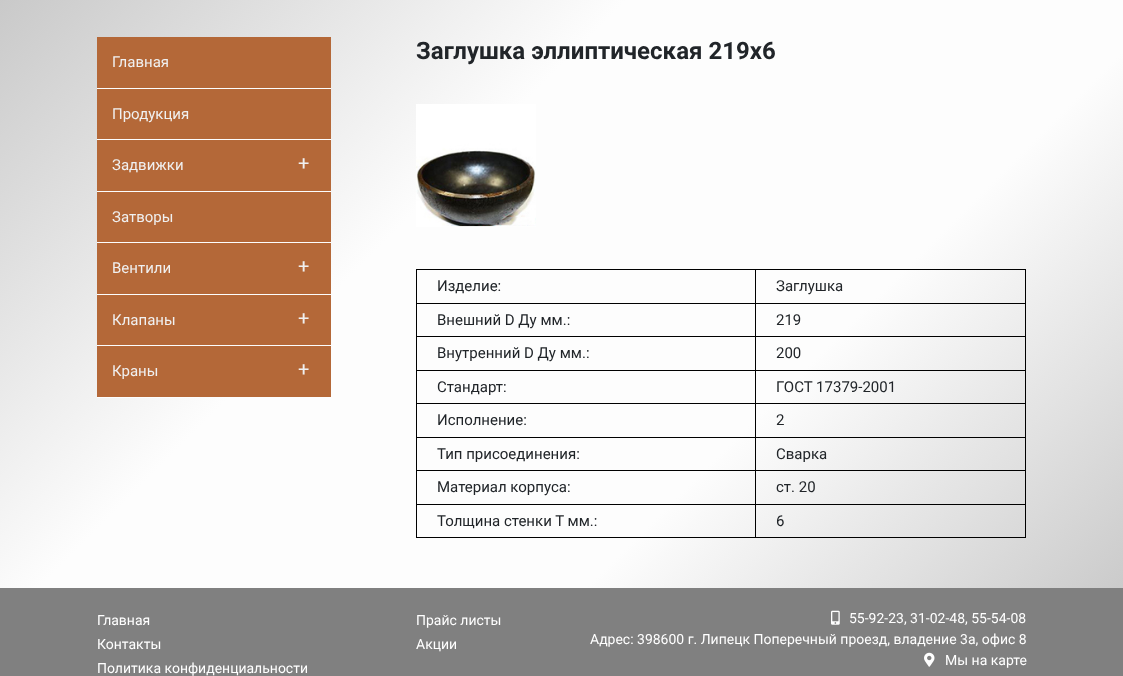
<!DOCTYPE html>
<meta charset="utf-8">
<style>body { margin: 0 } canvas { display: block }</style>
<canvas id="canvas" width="1123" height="676"></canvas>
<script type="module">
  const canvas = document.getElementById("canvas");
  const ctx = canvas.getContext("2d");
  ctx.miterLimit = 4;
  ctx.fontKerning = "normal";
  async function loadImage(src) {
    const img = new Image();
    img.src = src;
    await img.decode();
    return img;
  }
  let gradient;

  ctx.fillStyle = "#ffffff";
  ctx.fillRect(0, 0, 1123, 676);
  gradient = ctx.createLinearGradient(56, -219, 1068, 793);
  gradient.addColorStop(0, "#bcbcbc");
  gradient.addColorStop(0.39, "#fdfdfd");
  gradient.addColorStop(0.66, "#fdfdfd");
  gradient.addColorStop(1, "#bdbdbd");
  ctx.fillStyle = gradient;
  ctx.fillRect(0, 0, 1123, 588);
  ctx.fillStyle = "#b46838";
  ctx.fillRect(97, 37, 234, 51);
  ctx.fillStyle = "#fdfdfd";
  ctx.fillRect(97, 88, 234, 1);
  ctx.font = "15px Roboto";
  ctx.fillStyle = "#f0f0f0";
  ctx.fillText("Главная", 112, 67);
  ctx.fillStyle = "#b46838";
  ctx.fillRect(97, 89, 234, 50);
  ctx.fillStyle = "#fdfdfd";
  ctx.fillRect(97, 139, 234, 1);
  ctx.fillStyle = "#f0f0f0";
  ctx.fillText("Продукция", 112, 119);
  ctx.fillStyle = "#b46838";
  ctx.fillRect(97, 140, 234, 51);
  ctx.fillStyle = "#fdfdfd";
  ctx.fillRect(97, 191, 234, 1);
  ctx.fillStyle = "#f0f0f0";
  ctx.fillText("Задвижки", 112, 170);
  ctx.font = "20px Roboto";
  ctx.fillText("+", 298, 170);
  ctx.fillStyle = "#b46838";
  ctx.fillRect(97, 192, 234, 50);
  ctx.fillStyle = "#fdfdfd";
  ctx.fillRect(97, 242, 234, 1);
  ctx.font = "15px Roboto";
  ctx.fillStyle = "#f0f0f0";
  ctx.fillText("Затворы", 112, 222);
  ctx.fillStyle = "#b46838";
  ctx.fillRect(97, 243, 234, 51);
  ctx.fillStyle = "#fdfdfd";
  ctx.fillRect(97, 294, 205, 1);
  ctx.fillStyle = "#f0f0f0";
  ctx.fillText("Вентили", 112, 273);
  ctx.font = "20px Roboto";
  ctx.fillText("+", 298, 273);
  ctx.fillStyle = "#b46838";
  ctx.fillRect(97, 295, 234, 50);
  ctx.fillStyle = "#fdfdfd";
  ctx.fillRect(97, 345, 154, 1);
  ctx.font = "15px Roboto";
  ctx.fillStyle = "#f0f0f0";
  ctx.fillText("Клапаны", 112, 325);
  ctx.font = "20px Roboto";
  ctx.fillText("+", 298, 325);
  ctx.fillStyle = "#b46838";
  ctx.fillRect(97, 346, 234, 51);
  ctx.fillStyle = "#fdfdfd";
  ctx.fillRect(97, 397, 102, 1);
  ctx.font = "15px Roboto";
  ctx.fillStyle = "#f0f0f0";
  ctx.fillText("Краны", 112, 376);
  ctx.font = "20px Roboto";
  ctx.fillText("+", 298, 376);
  ctx.font = "bold 24px Roboto";
  ctx.fillStyle = "#212529";
  ctx.fillText("Заглушка эллиптическая 219х6", 416, 59);
  ctx.drawImage(await loadImage("img1.png"), 416, 104, 120, 123);
  ctx.fillStyle = "#000000";
  ctx.fillRect(755, 269, 271, 1);
  ctx.fillRect(755, 303, 271, 1);
  ctx.fillRect(755, 336, 271, 1);
  ctx.fillRect(755, 370, 271, 1);
  ctx.fillRect(755, 403, 271, 1);
  ctx.fillRect(755, 437, 271, 1);
  ctx.fillRect(755, 470, 271, 1);
  ctx.fillRect(755, 504, 271, 1);
  ctx.fillRect(1025, 504, 1, 34);
  ctx.fillRect(755, 537, 271, 1);
  ctx.fillRect(755, 504, 1, 34);
  ctx.fillRect(416, 504, 340, 1);
  ctx.fillRect(755, 470, 1, 35);
  ctx.fillRect(416, 470, 340, 1);
  ctx.fillRect(755, 437, 1, 34);
  ctx.fillRect(416, 437, 340, 1);
  ctx.fillRect(755, 403, 1, 35);
  ctx.fillRect(416, 403, 340, 1);
  ctx.fillRect(755, 370, 1, 34);
  ctx.fillRect(416, 370, 340, 1);
  ctx.fillRect(755, 336, 1, 35);
  ctx.fillRect(416, 336, 340, 1);
  ctx.fillRect(755, 303, 1, 34);
  ctx.fillRect(416, 303, 340, 1);
  ctx.fillRect(755, 269, 1, 35);
  ctx.fillRect(416, 269, 340, 1);
  ctx.fillRect(416, 537, 340, 1);
  ctx.fillRect(416, 504, 1, 34);
  ctx.fillRect(416, 470, 1, 35);
  ctx.fillRect(416, 437, 1, 34);
  ctx.fillRect(416, 403, 1, 35);
  ctx.fillRect(416, 370, 1, 34);
  ctx.fillRect(416, 336, 1, 35);
  ctx.fillRect(416, 303, 1, 34);
  ctx.fillRect(416, 269, 1, 35);
  ctx.font = "15px 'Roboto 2'";
  ctx.fillStyle = "#212529";
  ctx.fillText("Изделие:", 437, 291);
  ctx.fillStyle = "#000000";
  ctx.fillRect(1025, 470, 1, 35);
  ctx.fillRect(1025, 437, 1, 34);
  ctx.fillRect(1025, 403, 1, 35);
  ctx.fillRect(1025, 370, 1, 34);
  ctx.fillRect(1025, 336, 1, 35);
  ctx.fillRect(1025, 303, 1, 34);
  ctx.fillRect(1025, 269, 1, 35);
  ctx.fillStyle = "#212529";
  ctx.fillText("Заглушка", 776, 291);
  ctx.fillText("Внешний D Ду мм.:", 437, 325);
  ctx.fillText("219", 776, 325);
  ctx.fillText("Внутренний D Ду мм.:", 437, 358);
  ctx.fillText("200", 776, 358);
  ctx.fillText("Стандарт:", 437, 392);
  ctx.fillText("ГОСТ 17379-2001", 776, 392);
  ctx.fillText("Исполнение:", 437, 425);
  ctx.fillText("2", 776, 425);
  ctx.fillText("Тип присоединения:", 437, 459);
  ctx.fillText("Сварка", 776, 459);
  ctx.fillText("Материал корпуса:", 437, 492);
  ctx.fillText("ст. 20", 776, 492);
  ctx.fillText("Толщина стенки Т мм.:", 437, 526);
  ctx.fillText("6", 776, 526);
  ctx.fillStyle = "#808080";
  ctx.fillRect(0, 588, 1123, 88);
  ctx.font = "14px Roboto";
  ctx.fillStyle = "#ffffff";
  ctx.fillText("Главная", 97, 625);
  ctx.fillText("Контакты", 97, 649);
  ctx.fillText("Политика конфиденциальности", 97, 673);
  ctx.fillText("Прайс листы", 416, 625);
  ctx.fillText("Акции", 416, 649);
  ctx.drawImage(await loadImage("img2.png"), 831, 610, 9, 15);
  ctx.fillText("55-92-23, 31-02-48, 55-54-08", 849, 623);
  ctx.fillText("Адрес: 398600 г. Липецк Поперечный проезд, владение 3а, офис 8", 590, 644);
  ctx.drawImage(await loadImage("img3.png"), 924, 652, 11, 15);
  ctx.fillText("Мы на карте", 945, 665);
</script>
